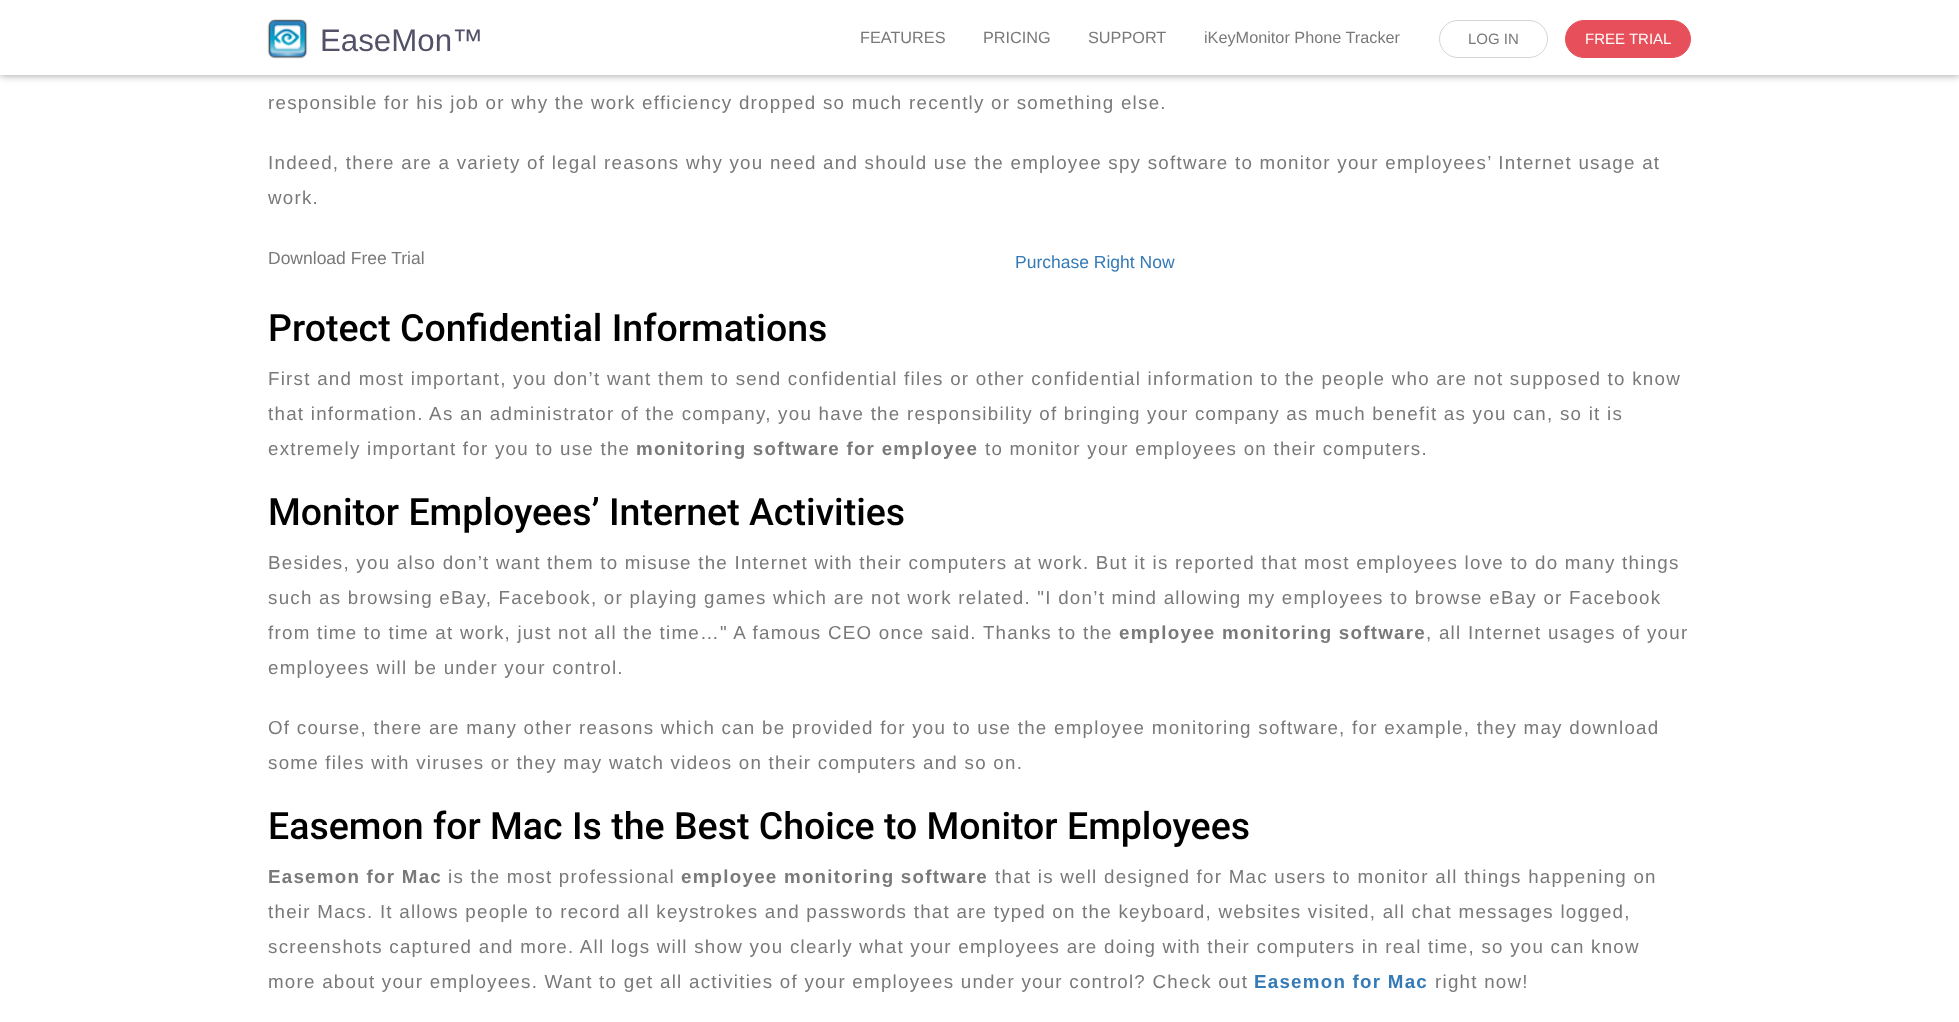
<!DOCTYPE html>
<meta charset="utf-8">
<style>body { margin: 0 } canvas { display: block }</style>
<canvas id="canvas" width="1959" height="1022"></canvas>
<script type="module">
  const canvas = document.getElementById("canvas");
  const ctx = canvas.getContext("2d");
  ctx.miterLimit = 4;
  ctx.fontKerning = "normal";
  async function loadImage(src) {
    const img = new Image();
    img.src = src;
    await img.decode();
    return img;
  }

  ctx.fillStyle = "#ffffff";
  ctx.fillRect(0, 0, 1959, 1022);
  ctx.fillStyle = "rgba(0, 0, 0, 0.4)";
  ctx.filter = "blur(4px)";
  ctx.beginPath();
  ctx.rect(0, 0, 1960, 75);
  ctx.fill();
  ctx.filter = "none";
  ctx.fillStyle = "#ffffff";
  ctx.fillRect(0, 0, 1959, 75);
  ctx.drawImage(await loadImage("img1.png"), 267, 19, 41, 40);
  ctx.font = "31.25px Liberation Sans";
  ctx.fillStyle = "#525168";
  ctx.fillText("EaseMon™", 320, 51);
  ctx.font = "16.25px Liberation Sans";
  ctx.fillStyle = "#797979";
  ctx.fillText("FEATURES", 860, 43);
  ctx.fillText("PRICING", 983, 43);
  ctx.fillText("SUPPORT", 1088, 43);
  ctx.fillText("iKeyMonitor Phone Tracker", 1204, 43);
  ctx.beginPath();
  ctx.roundRect(1439.5, 20.5, 108, 37, 18.5);
  ctx.strokeStyle = "#d5d5d5";
  ctx.stroke();
  ctx.font = "15px Liberation Sans";
  ctx.fillText("LOG IN", 1468, 44);
  ctx.fillStyle = "#e7505a";
  ctx.beginPath();
  ctx.roundRect(1565.5, 20.5, 125, 37, 18.5);
  ctx.fill();
  ctx.strokeStyle = "#e7505a";
  ctx.stroke();
  ctx.fillStyle = "#ffffff";
  ctx.fillText("FREE TRIAL", 1585, 44);
  ctx.letterSpacing = "1.25px";
  ctx.font = "18.75px Liberation Sans";
  ctx.fillStyle = "#797979";
  ctx.fillText("responsible for his job or why the work efficiency dropped so much recently or something else.", 268, 109);
  ctx.fillText("Indeed, there are a variety of legal reasons why you need and should use the employee spy software to monitor your employees’ Internet usage at", 268, 169);
  ctx.fillText("work.", 268, 204);
  ctx.letterSpacing = "0px";
  ctx.font = "17.5px Liberation Sans";
  ctx.fillText("Download Free Trial", 268, 264);
  ctx.fillStyle = "#337ab7";
  ctx.fillText("Purchase Right Now", 1015, 268);
  ctx.font = "500 37.5px Roboto";
  ctx.fillStyle = "#000000";
  ctx.fillText("Protect Confidential Informations", 268, 341);
  ctx.letterSpacing = "1.25px";
  ctx.font = "18.75px Liberation Sans";
  ctx.fillStyle = "#797979";
  ctx.fillText("First and most important, you don’t want them to send confidential files or other confidential information to the people who are not supposed to know", 268, 385);
  ctx.fillText("that information. As an administrator of the company, you have the responsibility of bringing your company as much benefit as you can, so it is", 268, 420);
  ctx.fillText("extremely important for you to use the", 268, 455);
  ctx.font = "bold 18.75px Liberation Sans";
  ctx.fillText("monitoring software for employee", 636, 455);
  ctx.font = "18.75px Liberation Sans";
  ctx.fillText("to monitor your employees on their computers.", 985, 455);
  ctx.letterSpacing = "0px";
  ctx.font = "500 37.5px Roboto";
  ctx.fillStyle = "#000000";
  ctx.fillText("Monitor Employees’ Internet Activities", 268, 525);
  ctx.letterSpacing = "1.25px";
  ctx.font = "18.75px Liberation Sans";
  ctx.fillStyle = "#797979";
  ctx.fillText("Besides, you also don’t want them to misuse the Internet with their computers at work. But it is reported that most employees love to do many things", 268, 569);
  ctx.fillText("such as browsing eBay, Facebook, or playing games which are not work related. \"I don’t mind allowing my employees to browse eBay or Facebook", 268, 604);
  ctx.fillText("from time to time at work, just not all the time…\" A famous CEO once said. Thanks to the", 268, 639);
  ctx.font = "bold 18.75px Liberation Sans";
  ctx.fillText("employee monitoring software", 1119, 639);
  ctx.font = "18.75px Liberation Sans";
  ctx.fillText(", all Internet usages of your", 1426, 639);
  ctx.fillText("employees will be under your control.", 268, 674);
  ctx.fillText("Of course, there are many other reasons which can be provided for you to use the employee monitoring software, for example, they may download", 268, 734);
  ctx.fillText("some files with viruses or they may watch videos on their computers and so on.", 268, 769);
  ctx.letterSpacing = "0px";
  ctx.font = "500 37.5px Roboto";
  ctx.fillStyle = "#000000";
  ctx.fillText("Easemon for Mac Is the Best Choice to Monitor Employees", 268, 839);
  ctx.letterSpacing = "1.25px";
  ctx.font = "bold 18.75px Liberation Sans";
  ctx.fillStyle = "#797979";
  ctx.fillText("Easemon for Mac", 268, 883);
  ctx.font = "18.75px Liberation Sans";
  ctx.fillText("is the most professional", 448, 883);
  ctx.font = "bold 18.75px Liberation Sans";
  ctx.fillText("employee monitoring software", 681, 883);
  ctx.font = "18.75px Liberation Sans";
  ctx.fillText("that is well designed for Mac users to monitor all things happening on", 995, 883);
  ctx.fillText("their Macs. It allows people to record all keystrokes and passwords that are typed on the keyboard, websites visited, all chat messages logged,", 268, 918);
  ctx.fillText("screenshots captured and more. All logs will show you clearly what your employees are doing with their computers in real time, so you can know", 268, 953);
  ctx.fillText("more about your employees. Want to get all activities of your employees under your control? Check out", 268, 988);
  ctx.font = "bold 18.75px Liberation Sans";
  ctx.fillStyle = "#337ab7";
  ctx.fillText("Easemon for Mac", 1254, 988);
  ctx.font = "18.75px Liberation Sans";
  ctx.fillStyle = "#797979";
  ctx.fillText("right now!", 1435, 988);
</script>
